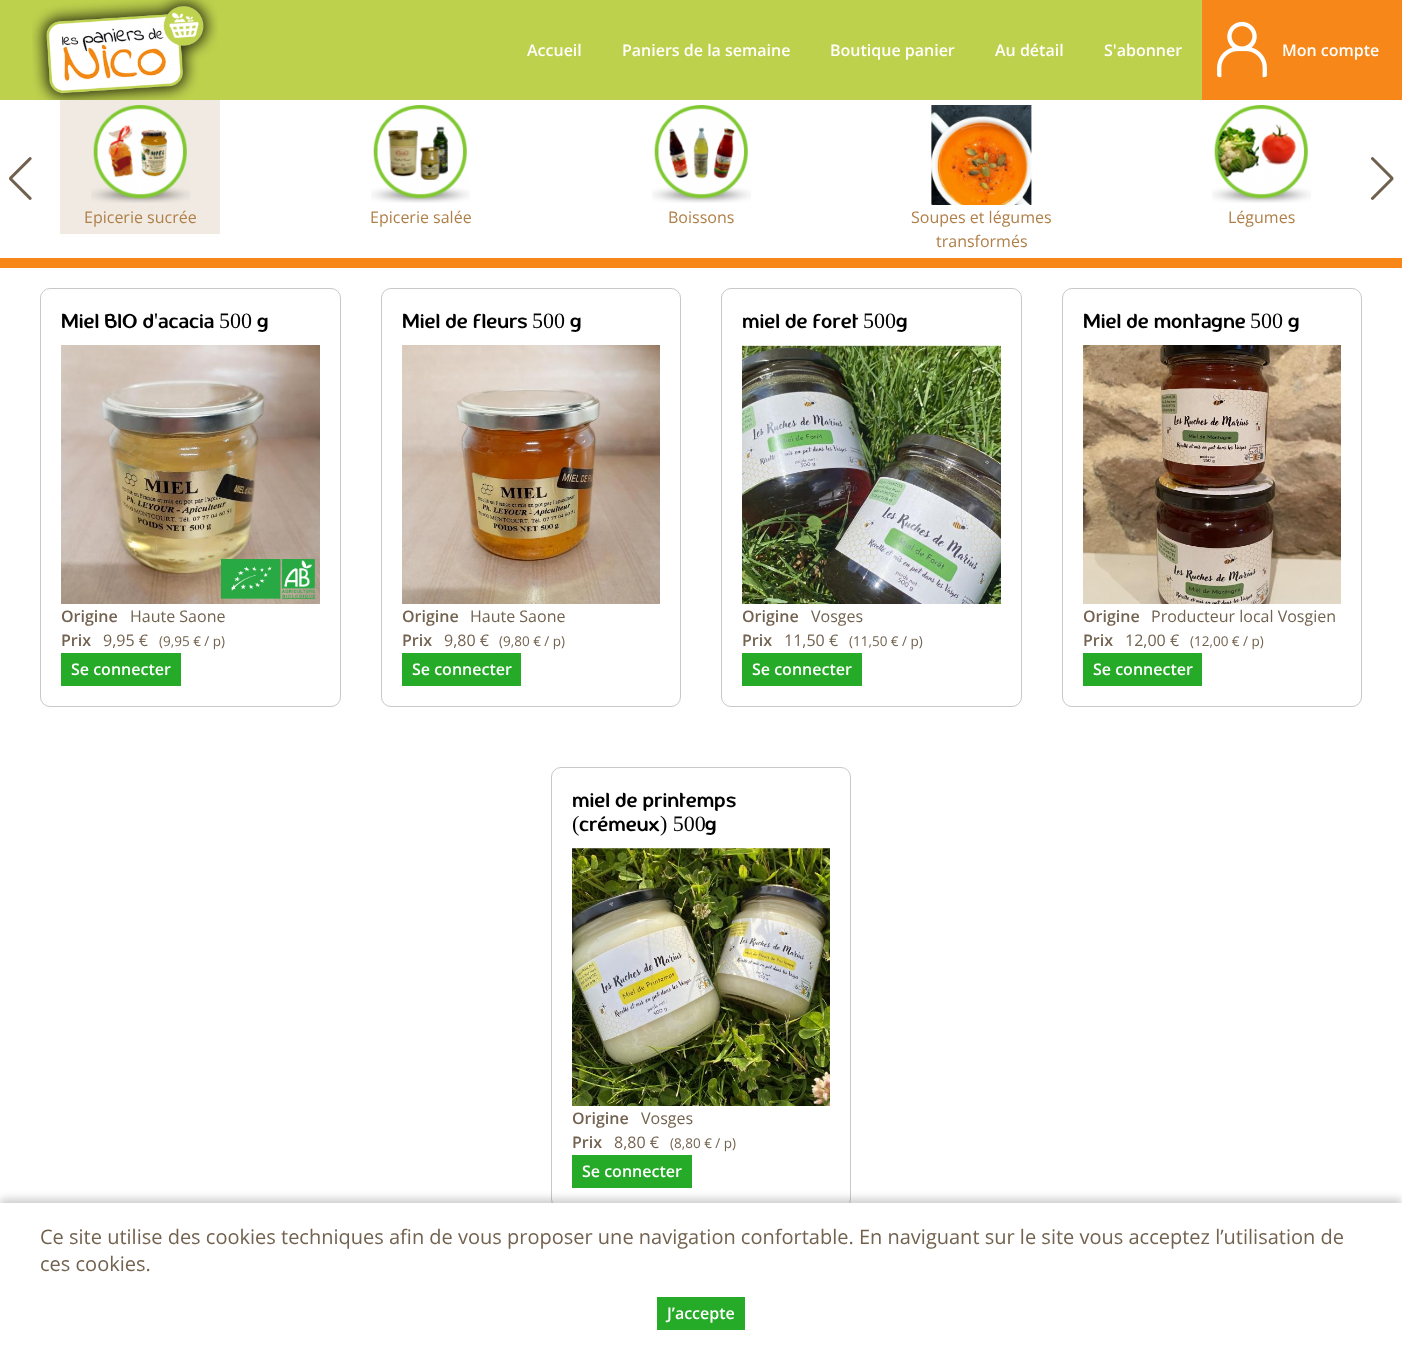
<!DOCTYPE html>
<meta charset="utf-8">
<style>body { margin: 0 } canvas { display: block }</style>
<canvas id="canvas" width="1402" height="1350"></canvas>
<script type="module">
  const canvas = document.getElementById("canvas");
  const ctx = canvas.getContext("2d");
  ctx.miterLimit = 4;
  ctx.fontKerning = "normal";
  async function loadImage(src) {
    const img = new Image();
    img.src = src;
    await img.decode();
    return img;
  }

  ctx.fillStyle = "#ffffff";
  ctx.fillRect(0, 0, 1402, 1350);
  ctx.fillStyle = "#bdd14d";
  ctx.fillRect(0, 0, 1202, 100);
  ctx.drawImage(await loadImage("img1.png"), 32, 0, 186, 100);
  ctx.font = "600 16px Open Sans";
  ctx.fillStyle = "#ffffff";
  ctx.fillText("Accueil", 527, 56);
  ctx.fillText("Paniers de la semaine", 622, 56);
  ctx.fillText("Boutique panier", 830, 56);
  ctx.fillText("Au détail", 995, 56);
  ctx.fillText("S'abonner", 1104, 56);
  ctx.fillStyle = "#f68718";
  ctx.fillRect(1202, 0, 200, 100);
  ctx.drawImage(await loadImage("img2.png"), 1217, 21, 50, 57);
  ctx.fillStyle = "#ffffff";
  ctx.fillText("Mon compte", 1282, 56);
  ctx.fillStyle = "#f68718";
  ctx.fillRect(0, 258, 1402, 10);
  ctx.drawImage(await loadImage("img3.png"), 9, 157, 23, 43);
  ctx.drawImage(await loadImage("img4.png"), 1370, 157, 24, 43);
  ctx.fillStyle = "#f0eae3";
  ctx.fillRect(60, 100, 160, 134);
  ctx.drawImage(await loadImage("img5.png"), 91, 105, 99, 98);
  ctx.font = "16px Open Sans";
  ctx.fillStyle = "#b07f48";
  ctx.fillText("Epicerie sucrée", 84, 223);
  ctx.drawImage(await loadImage("img6.png"), 371, 105, 99, 98);
  ctx.fillText("Epicerie salée", 370, 223);
  ctx.drawImage(await loadImage("img7.png"), 652, 105, 99, 98);
  ctx.fillText("Boissons", 668, 223);
  ctx.drawImage(await loadImage("img8.png"), 931, 105, 101, 100);
  ctx.fillText("Soupes et légumes", 911, 223);
  ctx.fillText("transformés", 936, 247);
  ctx.drawImage(await loadImage("img9.png"), 1212, 105, 99, 98);
  ctx.fillText("Légumes", 1228, 223);
  ctx.beginPath();
  ctx.roundRect(40.5, 288.5, 300, 418, 9.5);
  ctx.strokeStyle = "#c8c8c8";
  ctx.stroke();
  ctx.font = "22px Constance";
  ctx.fillStyle = "#000000";
  ctx.fillText("Miel BIO d", 61, 328);
  ctx.font = "22px Liberation Serif";
  ctx.fillText("'", 154, 328);
  ctx.font = "22px Constance";
  ctx.fillText("acacia", 158, 328);
  ctx.font = "22px Liberation Serif";
  ctx.fillText("500", 219, 328);
  ctx.font = "22px Constance";
  ctx.fillText("g", 257, 328);
  ctx.drawImage(await loadImage("img10.png"), 61, 345, 259, 259);
  ctx.drawImage(await loadImage("img11.png"), 221, 559, 94, 40);
  ctx.font = "600 16px Open Sans";
  ctx.fillStyle = "#72624f";
  ctx.fillText("Origine", 61, 622);
  ctx.font = "16px Open Sans";
  ctx.fillText("Haute Saone", 130, 622);
  ctx.font = "600 16px Open Sans";
  ctx.fillText("Prix", 61, 646);
  ctx.font = "16px Open Sans";
  ctx.fillText("9,95 €", 103, 646);
  ctx.font = "13.5px Open Sans";
  ctx.fillText("(9,95 € / p)", 159, 646);
  ctx.fillStyle = "#25ab28";
  ctx.fillRect(61, 653, 120, 33);
  ctx.font = "600 16px Open Sans";
  ctx.fillStyle = "#ffffff";
  ctx.fillText("Se connecter", 71, 675);
  ctx.beginPath();
  ctx.roundRect(381.5, 288.5, 299, 418, 9.5);
  ctx.stroke();
  ctx.font = "22px Constance";
  ctx.fillStyle = "#000000";
  ctx.fillText("Miel de fleurs", 402, 328);
  ctx.font = "22px Liberation Serif";
  ctx.fillText("500", 532, 328);
  ctx.font = "22px Constance";
  ctx.fillText("g", 570, 328);
  ctx.drawImage(await loadImage("img12.png"), 402, 345, 258, 259);
  ctx.font = "600 16px Open Sans";
  ctx.fillStyle = "#72624f";
  ctx.fillText("Origine", 402, 622);
  ctx.font = "16px Open Sans";
  ctx.fillText("Haute Saone", 470, 622);
  ctx.font = "600 16px Open Sans";
  ctx.fillText("Prix", 402, 646);
  ctx.font = "16px Open Sans";
  ctx.fillText("9,80 €", 444, 646);
  ctx.font = "13.5px Open Sans";
  ctx.fillText("(9,80 € / p)", 499, 646);
  ctx.fillStyle = "#25ab28";
  ctx.fillRect(402, 653, 119, 33);
  ctx.font = "600 16px Open Sans";
  ctx.fillStyle = "#ffffff";
  ctx.fillText("Se connecter", 412, 675);
  ctx.beginPath();
  ctx.roundRect(721.5, 288.5, 300, 418, 9.5);
  ctx.stroke();
  ctx.font = "22px Constance";
  ctx.fillStyle = "#000000";
  ctx.fillText("miel de foret", 742, 328);
  ctx.font = "22px Liberation Serif";
  ctx.fillText("500", 863, 328);
  ctx.font = "22px Constance";
  ctx.fillText("g", 896, 328);
  ctx.drawImage(await loadImage("img13.png"), 742, 345, 259, 259);
  ctx.font = "600 16px Open Sans";
  ctx.fillStyle = "#72624f";
  ctx.fillText("Origine", 742, 622);
  ctx.font = "16px Open Sans";
  ctx.fillText("Vosges", 811, 622);
  ctx.font = "600 16px Open Sans";
  ctx.fillText("Prix", 742, 646);
  ctx.font = "16px Open Sans";
  ctx.fillText("11,50 €", 784, 646);
  ctx.font = "13.5px Open Sans";
  ctx.fillText("(11,50 € / p)", 849, 646);
  ctx.fillStyle = "#25ab28";
  ctx.fillRect(742, 653, 120, 33);
  ctx.font = "600 16px Open Sans";
  ctx.fillStyle = "#ffffff";
  ctx.fillText("Se connecter", 752, 675);
  ctx.beginPath();
  ctx.roundRect(1062.5, 288.5, 299, 418, 9.5);
  ctx.stroke();
  ctx.font = "22px Constance";
  ctx.fillStyle = "#000000";
  ctx.fillText("Miel de montagne", 1083, 328);
  ctx.font = "22px Liberation Serif";
  ctx.fillText("500", 1250, 328);
  ctx.font = "22px Constance";
  ctx.fillText("g", 1288, 328);
  ctx.drawImage(await loadImage("img14.png"), 1083, 345, 258, 259);
  ctx.font = "600 16px Open Sans";
  ctx.fillStyle = "#72624f";
  ctx.fillText("Origine", 1083, 622);
  ctx.font = "16px Open Sans";
  ctx.fillText("Producteur local Vosgien", 1151, 622);
  ctx.font = "600 16px Open Sans";
  ctx.fillText("Prix", 1083, 646);
  ctx.font = "16px Open Sans";
  ctx.fillText("12,00 €", 1125, 646);
  ctx.font = "13.5px Open Sans";
  ctx.fillText("(12,00 € / p)", 1190, 646);
  ctx.fillStyle = "#25ab28";
  ctx.fillRect(1083, 653, 119, 33);
  ctx.font = "600 16px Open Sans";
  ctx.fillStyle = "#ffffff";
  ctx.fillText("Se connecter", 1093, 675);
  ctx.beginPath();
  ctx.roundRect(551.5, 767.5, 299, 441, 9.5);
  ctx.stroke();
  ctx.font = "22px Constance";
  ctx.fillStyle = "#000000";
  ctx.fillText("miel de printemps", 572, 807);
  ctx.font = "22px Liberation Serif";
  ctx.fillText("(", 572, 831);
  ctx.font = "22px Constance";
  ctx.fillText("crémeux", 579, 831);
  ctx.font = "22px Liberation Serif";
  ctx.fillText(") 500", 660, 831);
  ctx.font = "22px Constance";
  ctx.fillText("g", 705, 831);
  ctx.drawImage(await loadImage("img15.png"), 572, 848, 258, 258);
  ctx.font = "600 16px Open Sans";
  ctx.fillStyle = "#72624f";
  ctx.fillText("Origine", 572, 1124);
  ctx.font = "16px Open Sans";
  ctx.fillText("Vosges", 641, 1124);
  ctx.font = "600 16px Open Sans";
  ctx.fillText("Prix", 572, 1148);
  ctx.font = "16px Open Sans";
  ctx.fillText("8,80 €", 614, 1148);
  ctx.font = "13.5px Open Sans";
  ctx.fillText("(8,80 € / p)", 670, 1148);
  ctx.fillStyle = "#25ab28";
  ctx.fillRect(572, 1155, 120, 33);
  ctx.font = "600 16px Open Sans";
  ctx.fillStyle = "#ffffff";
  ctx.fillText("Se connecter", 582, 1177);
  ctx.fillStyle = "rgba(0, 0, 0, 0.2)";
  ctx.filter = "blur(4px)";
  ctx.beginPath();
  ctx.rect(0, 1199, 1402, 147);
  ctx.fill();
  ctx.filter = "none";
  ctx.fillStyle = "#ffffff";
  ctx.fillRect(0, 1203, 1402, 147);
  ctx.font = "20px Open Sans";
  ctx.fillStyle = "#72624f";
  ctx.fillText("Ce site utilise des cookies techniques afin de vous proposer une navigation confortable. En naviguant sur le site vous acceptez l’utilisation de", 40, 1244);
  ctx.fillText("ces cookies.", 40, 1271);
  ctx.fillStyle = "#25ab28";
  ctx.fillRect(657, 1297, 88, 33);
  ctx.font = "600 16px Open Sans";
  ctx.fillStyle = "#ffffff";
  ctx.fillText("J’accepte", 667, 1319);
</script>
